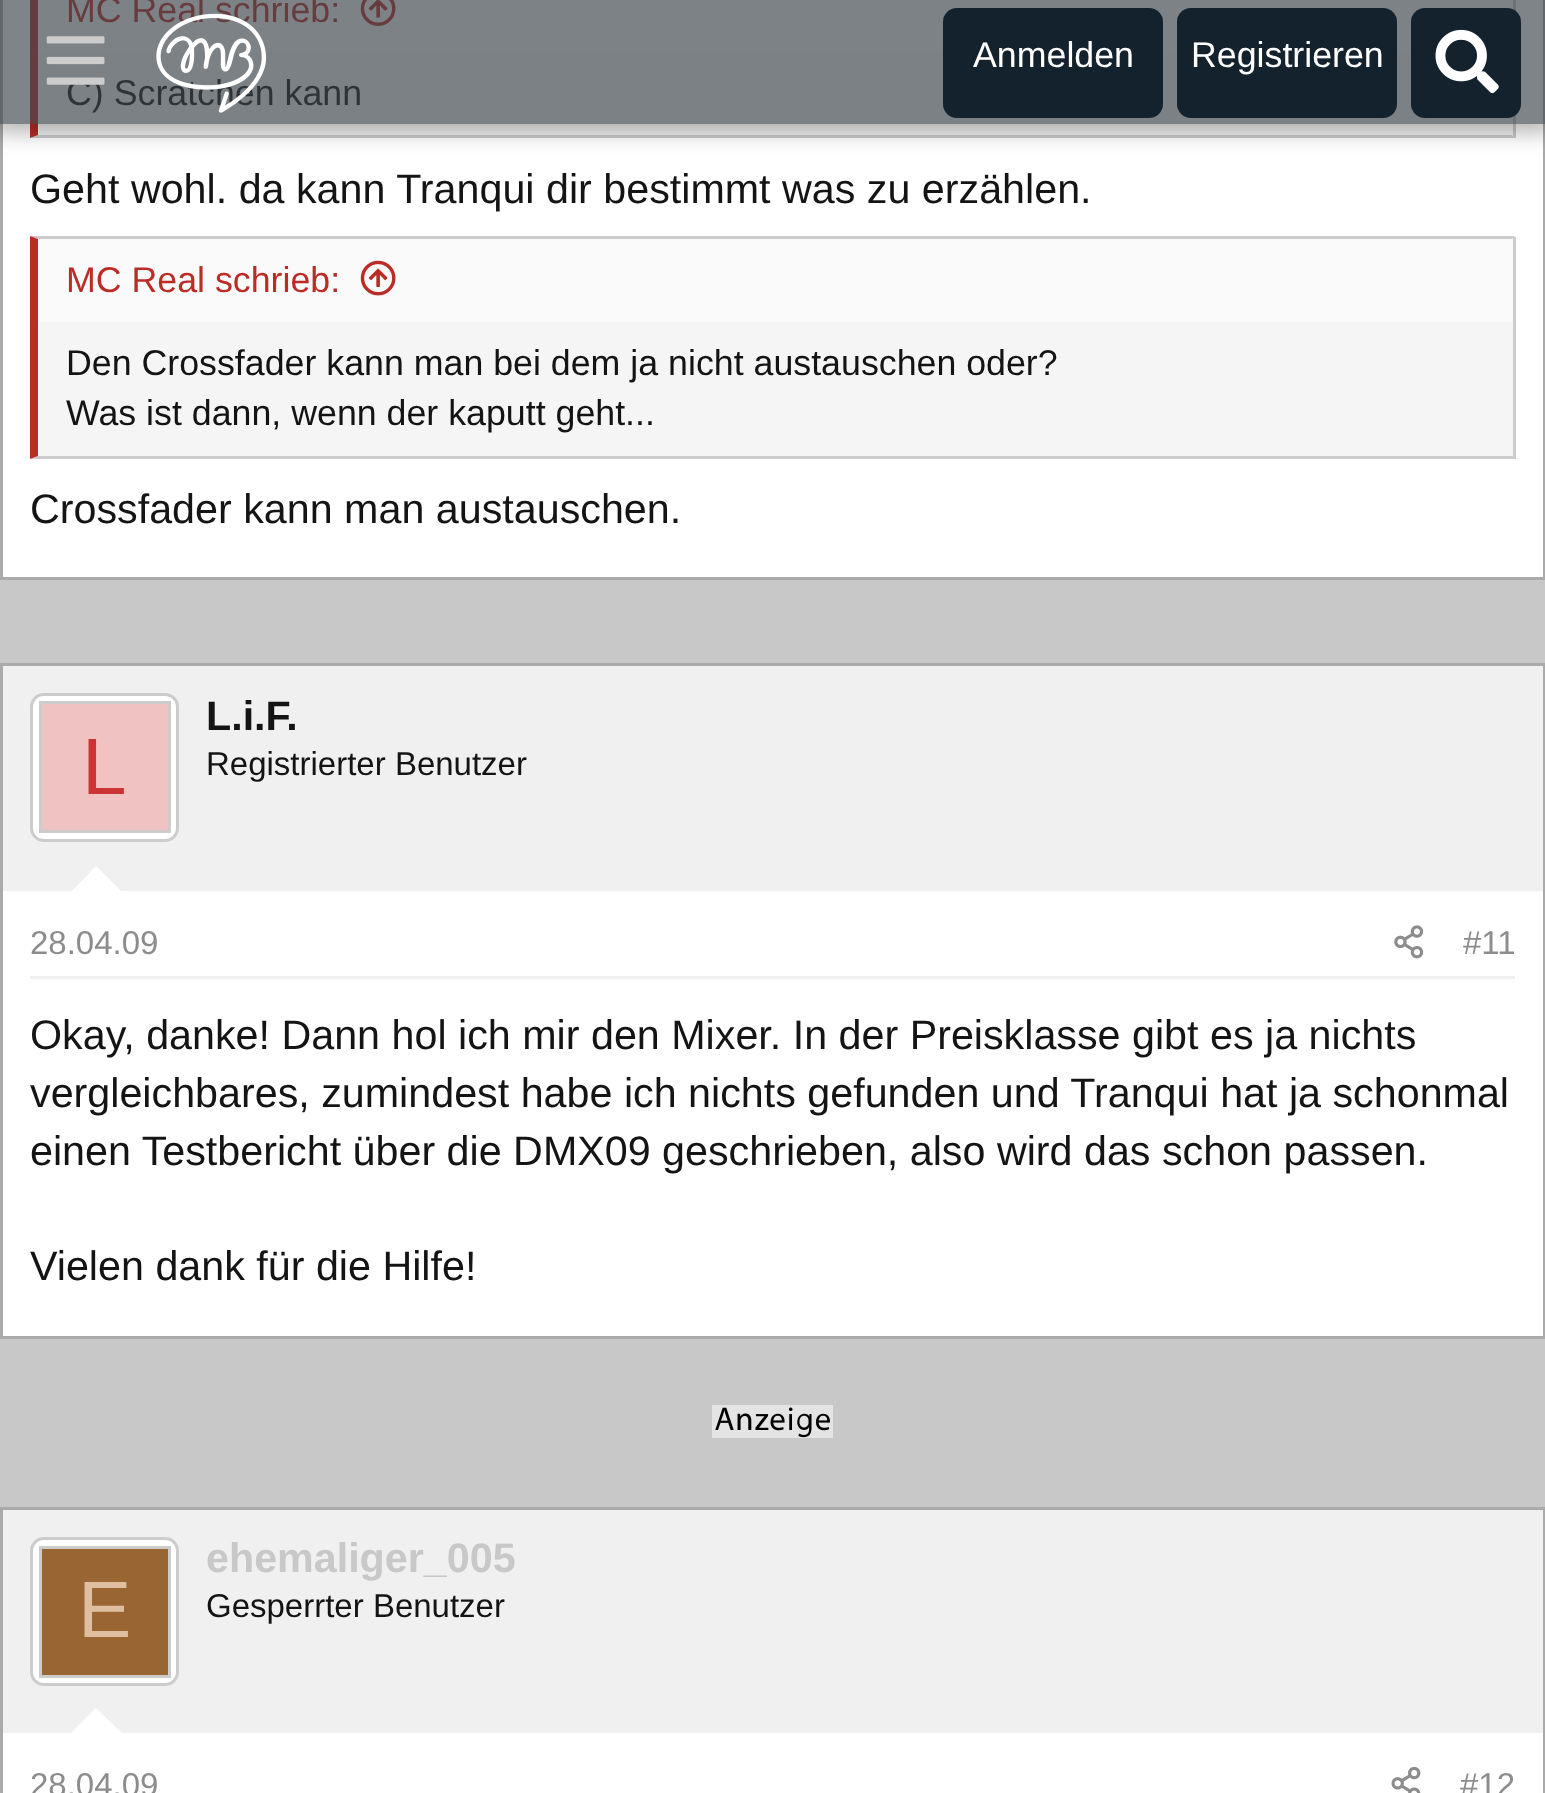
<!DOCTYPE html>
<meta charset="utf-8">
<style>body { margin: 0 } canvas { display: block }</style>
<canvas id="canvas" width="1545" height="1793"></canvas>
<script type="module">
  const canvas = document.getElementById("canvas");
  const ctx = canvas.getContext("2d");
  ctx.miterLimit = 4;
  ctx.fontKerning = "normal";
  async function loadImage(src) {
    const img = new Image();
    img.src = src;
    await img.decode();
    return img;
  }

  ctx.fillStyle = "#c8c8c8";
  ctx.fillRect(0, 0, 1545, 1793);
  ctx.fillStyle = "#ffffff";
  ctx.beginPath();
  ctx.rect(1.5, -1.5, 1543, 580);
  ctx.fill();
  ctx.strokeStyle = "#aaaaaa";
  ctx.lineWidth = 3;
  ctx.stroke();
  ctx.fillStyle = "#f5f5f5";
  ctx.fillRect(39, 52, 1474, 83);
  ctx.fillStyle = "#cccccc";
  ctx.fillRect(1513, 0, 3, 138);
  ctx.beginPath();
  ctx.moveTo(1515, 138);
  ctx.lineTo(30, 138);
  ctx.lineTo(38, 135);
  ctx.lineTo(1512, 135);
  ctx.closePath();
  ctx.fill();
  ctx.fillStyle = "#bc2c26";
  ctx.beginPath();
  ctx.moveTo(30, 138);
  ctx.lineTo(30, -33);
  ctx.lineTo(38, -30);
  ctx.lineTo(38, 135);
  ctx.closePath();
  ctx.fill();
  ctx.fillStyle = "#fafafa";
  ctx.fillRect(39, 0, 1474, 52);
  ctx.font = "35.75px Liberation Sans";
  ctx.fillStyle = "#bc2c26";
  ctx.fillText("MC Real schrieb:", 66, 22);
  ctx.drawImage(await loadImage("img1.png"), 360, 0, 36, 26);
  ctx.fillStyle = "#141414";
  ctx.fillText("C) Scratchen kann", 66, 105);
  ctx.font = "41.25px Liberation Sans";
  ctx.fillText("Geht wohl. da kann Tranqui dir bestimmt was zu erzählen.", 30, 203);
  ctx.fillStyle = "#f5f5f5";
  ctx.fillRect(39, 322, 1474, 135);
  ctx.fillStyle = "#cccccc";
  ctx.beginPath();
  ctx.moveTo(30, 236);
  ctx.lineTo(1515, 236);
  ctx.lineTo(1512, 239);
  ctx.lineTo(38, 239);
  ctx.closePath();
  ctx.fill();
  ctx.fillRect(1513, 237, 3, 222);
  ctx.beginPath();
  ctx.moveTo(1515, 459);
  ctx.lineTo(30, 459);
  ctx.lineTo(38, 456);
  ctx.lineTo(1512, 456);
  ctx.closePath();
  ctx.fill();
  ctx.fillStyle = "#bc2c26";
  ctx.beginPath();
  ctx.moveTo(30, 459);
  ctx.lineTo(30, 236);
  ctx.lineTo(38, 239);
  ctx.lineTo(38, 456);
  ctx.closePath();
  ctx.fill();
  ctx.fillStyle = "#fafafa";
  ctx.fillRect(39, 239, 1474, 83);
  ctx.font = "35.75px Liberation Sans";
  ctx.fillStyle = "#bc2c26";
  ctx.fillText("MC Real schrieb:", 66, 292);
  ctx.drawImage(await loadImage("img2.png"), 360, 260, 36, 36);
  ctx.fillStyle = "#141414";
  ctx.fillText("Den Crossfader kann man bei dem ja nicht austauschen oder?", 66, 375);
  ctx.fillText("Was ist dann, wenn der kaputt geht...", 66, 425);
  ctx.font = "41.25px Liberation Sans";
  ctx.fillText("Crossfader kann man austauschen.", 30, 523);
  ctx.fillStyle = "#ffffff";
  ctx.fillRect(3, 894, 1540, 442);
  ctx.strokeRect(1.5, 664.5, 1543, 673);
  ctx.fillStyle = "#f0f0f0";
  ctx.fillRect(3, 666, 1540, 225);
  ctx.fillStyle = "#ffffff";
  ctx.fillRect(3, 891, 1540, 3);
  ctx.beginPath();
  ctx.roundRect(31.5, 694.5, 146, 146, 12.5);
  ctx.fill();
  ctx.strokeStyle = "#cccccc";
  ctx.stroke();
  ctx.fillStyle = "#f0c2c2";
  ctx.beginPath();
  ctx.rect(40.5, 702.5, 129, 129);
  ctx.fill();
  ctx.stroke();
  ctx.font = "80px Liberation Sans";
  ctx.fillStyle = "#cc3333";
  ctx.fillText("L", 82, 794);
  ctx.font = "bold 41.25px Liberation Sans";
  ctx.fillStyle = "#141414";
  ctx.fillText("L.i.F.", 206, 730);
  ctx.font = "33px Liberation Sans";
  ctx.fillText("Registrierter Benutzer", 206, 775);
  ctx.fillStyle = "#ffffff";
  ctx.beginPath();
  ctx.moveTo(124, 894);
  ctx.lineTo(69, 894);
  ctx.lineTo(96, 866);
  ctx.closePath();
  ctx.fill();
  ctx.fillStyle = "#f0f0f0";
  ctx.fillRect(30, 976, 1485, 3);
  ctx.fillStyle = "#8c8c8c";
  ctx.fillText("28.04.09", 30, 954);
  ctx.drawImage(await loadImage("img3.png"), 1394, 925, 30, 34);
  ctx.fillText("#11", 1463, 954);
  ctx.font = "41.25px Liberation Sans";
  ctx.fillStyle = "#141414";
  ctx.fillText("Okay, danke! Dann hol ich mir den Mixer. In der Preisklasse gibt es ja nichts", 30, 1049);
  ctx.fillText("vergleichbares, zumindest habe ich nichts gefunden und Tranqui hat ja schonmal", 30, 1107);
  ctx.fillText("einen Testbericht über die DMX09 geschrieben, also wird das schon passen.", 30, 1165);
  ctx.fillText("Vielen dank für die Hilfe!", 30, 1280);
  ctx.drawImage(await loadImage("img4.png"), 712, 1405, 121, 33);
  ctx.fillStyle = "#ffffff";
  ctx.fillRect(3, 1736, 1540, 57);
  ctx.strokeStyle = "#aaaaaa";
  ctx.strokeRect(1.5, 1508.5, 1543, 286);
  ctx.fillStyle = "#f0f0f0";
  ctx.fillRect(3, 1510, 1540, 223);
  ctx.fillStyle = "#ffffff";
  ctx.fillRect(3, 1733, 1540, 3);
  ctx.beginPath();
  ctx.roundRect(31.5, 1538.5, 146, 146, 12.5);
  ctx.fill();
  ctx.strokeStyle = "#cccccc";
  ctx.stroke();
  ctx.fillStyle = "#996633";
  ctx.beginPath();
  ctx.rect(40.5, 1547.5, 129, 129);
  ctx.fill();
  ctx.stroke();
  ctx.font = "80px Liberation Sans";
  ctx.fillStyle = "#dfbf9f";
  ctx.fillText("E", 78, 1637);
  ctx.font = "bold 41.25px Liberation Sans";
  ctx.fillStyle = "#c8c8c8";
  ctx.fillText("ehemaliger_005", 206, 1572);
  ctx.font = "33px Liberation Sans";
  ctx.fillStyle = "#141414";
  ctx.fillText("Gesperrter Benutzer", 206, 1617);
  ctx.fillStyle = "#ffffff";
  ctx.beginPath();
  ctx.moveTo(124, 1735);
  ctx.lineTo(69, 1735);
  ctx.lineTo(96, 1708);
  ctx.closePath();
  ctx.fill();
  ctx.fillStyle = "#8c8c8c";
  ctx.fillText("28.04.09", 30, 1796);
  ctx.drawImage(await loadImage("img5.png"), 1391, 1766, 30, 27);
  ctx.fillText("#12", 1460, 1796);
  ctx.save();
  ctx.beginPath();
  ctx.moveTo(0, 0);
  ctx.lineTo(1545, 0);
  ctx.lineTo(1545, 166);
  ctx.lineTo(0, 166);
  ctx.closePath();
  ctx.moveTo(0, 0);
  ctx.lineTo(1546, 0);
  ctx.lineTo(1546, 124);
  ctx.lineTo(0, 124);
  ctx.closePath();
  ctx.clip("evenodd");
  ctx.fillStyle = "rgba(0, 0, 0, 0.3)";
  ctx.filter = "blur(11px)";
  ctx.beginPath();
  ctx.rect(-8, -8, 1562, 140);
  ctx.fill();
  ctx.filter = "none";
  ctx.restore();
  ctx.fillStyle = "rgba(59, 68, 75, 0.66)";
  ctx.fillRect(0, 0, 1545, 124);
  ctx.drawImage(await loadImage("img6.png"), 46, 36, 59, 49);
  ctx.drawImage(await loadImage("img7.png"), 156, 13, 111, 100);
  ctx.fillStyle = "#14222d";
  ctx.beginPath();
  ctx.roundRect(943, 8, 220, 110, 14);
  ctx.fill();
  ctx.font = "35.75px Liberation Sans";
  ctx.fillStyle = "#ffffff";
  ctx.fillText("Anmelden", 973, 67);
  ctx.fillStyle = "#14222d";
  ctx.beginPath();
  ctx.roundRect(1177, 8, 220, 110, 14);
  ctx.fill();
  ctx.fillStyle = "#ffffff";
  ctx.fillText("Registrieren", 1191, 67);
  ctx.fillStyle = "#14222d";
  ctx.beginPath();
  ctx.roundRect(1411, 8, 110, 110, 14);
  ctx.fill();
  ctx.drawImage(await loadImage("img8.png"), 1435, 29, 64, 65);
</script>
